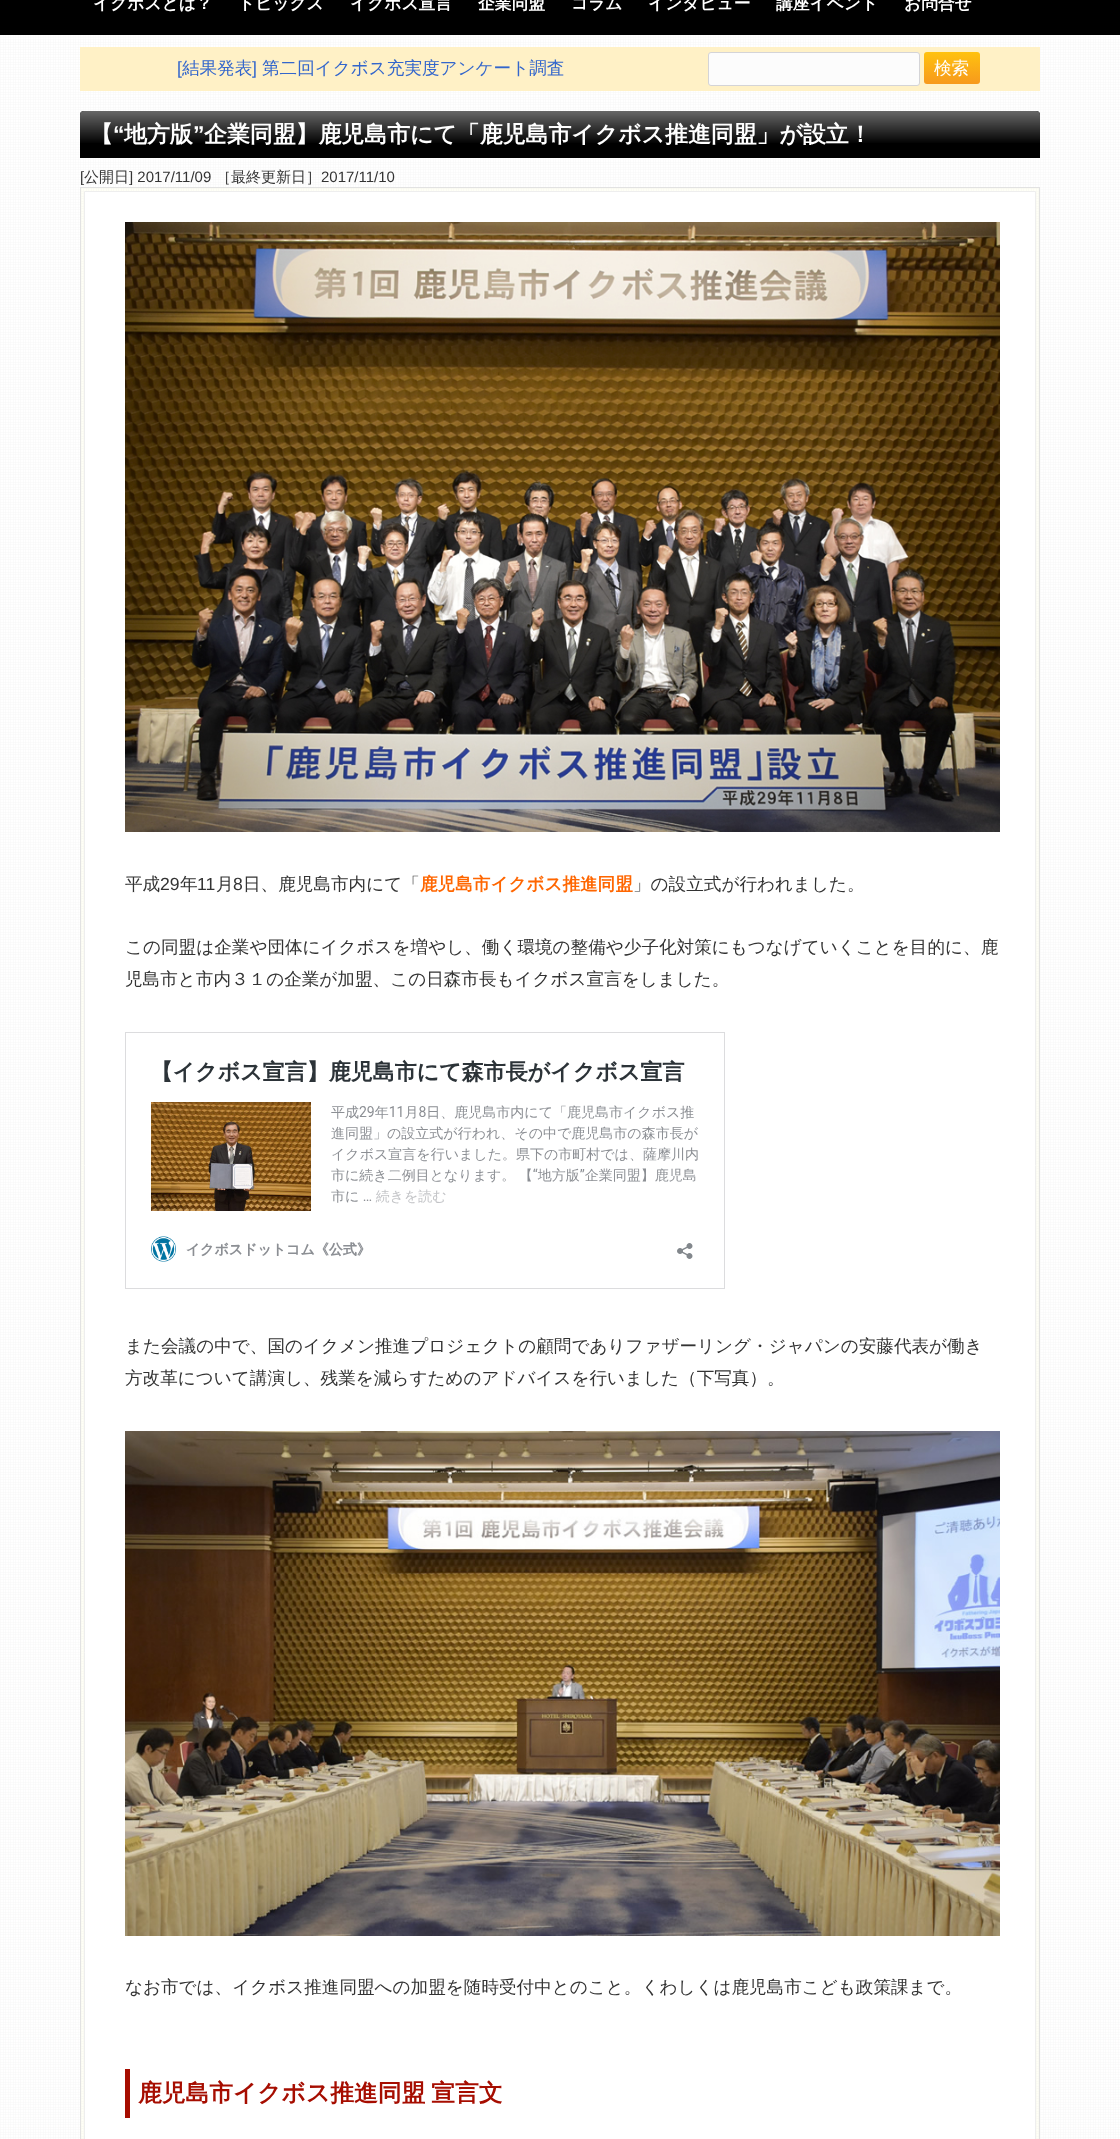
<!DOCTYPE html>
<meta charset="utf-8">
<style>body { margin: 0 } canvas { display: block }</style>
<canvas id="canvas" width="1120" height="2139"></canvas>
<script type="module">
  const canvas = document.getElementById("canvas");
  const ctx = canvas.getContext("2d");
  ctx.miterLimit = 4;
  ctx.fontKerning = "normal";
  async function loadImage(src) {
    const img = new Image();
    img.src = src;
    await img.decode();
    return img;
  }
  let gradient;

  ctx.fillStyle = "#ffffff";
  ctx.fillRect(0, 0, 1120, 2139);
  ctx.drawImage(await loadImage("img1.png"), 0, 35, 1120, 2104);
  ctx.fillStyle = "#000000";
  ctx.fillRect(0, 0, 1120, 35);
  ctx.font = "bold 16.75px WenQuanYi Zen Hei";
  ctx.fillStyle = "#ffffff";
  ctx.fillText("イクボスとは？", 93, 9);
  ctx.fillText("トピックス", 238, 9);
  ctx.fillText("イクボス宣言", 350, 9);
  ctx.fillText("企業同盟", 478, 9);
  ctx.fillText("コラム", 571, 9);
  ctx.fillText("インタビュー", 648, 9);
  ctx.fillText("講座イベント", 776, 9);
  ctx.fillText("お問合せ", 904, 9);
  ctx.fillStyle = "#fff1c6";
  ctx.fillRect(80, 47, 960, 44);
  ctx.font = "17.6px Liberation Sans";
  ctx.fillStyle = "#3366cc";
  ctx.fillText("[", 177, 74);
  ctx.font = "500 17.6px WenQuanYi Zen Hei";
  ctx.fillText("結果発表", 182, 74);
  ctx.font = "17.6px Liberation Sans";
  ctx.fillText("]", 252, 74);
  ctx.font = "500 17.6px WenQuanYi Zen Hei";
  ctx.fillText("第二回イクボス充実度アンケート調査", 262, 74);
  ctx.fillStyle = "#fcfcfc";
  ctx.beginPath();
  ctx.roundRect(708.5, 52.5, 211, 33, 2.5);
  ctx.fill();
  ctx.strokeStyle = "#d4d4d7";
  ctx.stroke();
  gradient = ctx.createLinearGradient(952, 52, 952, 84);
  gradient.addColorStop(0, "#ffc20f");
  gradient.addColorStop(1, "#f7991d");
  ctx.fillStyle = gradient;
  ctx.beginPath();
  ctx.roundRect(924, 52, 56, 32, 3);
  ctx.fill();
  ctx.fillStyle = "#ffffff";
  ctx.fillText("検索", 934, 74);
  ctx.fillStyle = "#000000";
  ctx.beginPath();
  ctx.roundRect(80, 111, 960, 47, [4, 4, 0, 0]);
  ctx.fill();
  ctx.drawImage(await loadImage("img2.png"), 80, 111, 960, 32);
  ctx.font = "bold 22.9px WenQuanYi Zen Hei";
  ctx.fillStyle = "#ffffff";
  ctx.fillText("【", 90, 142);
  ctx.font = "bold 22.9px Liberation Sans";
  ctx.fillText("“", 113, 142);
  ctx.font = "bold 22.9px WenQuanYi Zen Hei";
  ctx.fillText("地方版", 124, 142);
  ctx.font = "bold 22.9px Liberation Sans";
  ctx.fillText("”", 193, 142);
  ctx.font = "bold 22.9px WenQuanYi Zen Hei";
  ctx.fillText("企業同盟】鹿児島市にて「鹿児島市イクボス推進同盟」が設立！", 204, 142);
  ctx.font = "15px Liberation Sans";
  ctx.fillStyle = "#333333";
  ctx.fillText("[", 80, 182);
  ctx.font = "500 15px WenQuanYi Zen Hei";
  ctx.fillText("公開日", 84, 182);
  ctx.font = "15px Liberation Sans";
  ctx.fillText("] 2017/11/09", 129, 182);
  ctx.font = "500 15px WenQuanYi Zen Hei";
  ctx.fillText("［最終更新日］", 216, 182);
  ctx.font = "15px Liberation Sans";
  ctx.fillText("2017/11/10", 321, 182);
  ctx.drawImage(await loadImage("img3.png"), 81, 188, 958, 1951);
  ctx.strokeStyle = "#e2e2e2";
  ctx.strokeRect(80.5, 187.5, 959, 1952);
  ctx.fillStyle = "#ffffff";
  ctx.beginPath();
  ctx.rect(84.5, 191.5, 951, 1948);
  ctx.fill();
  ctx.strokeStyle = "#eeeeee";
  ctx.stroke();
  ctx.drawImage(await loadImage("img4.png"), 125, 222, 875, 610);
  ctx.font = "500 17.6px WenQuanYi Zen Hei";
  ctx.fillStyle = "#333333";
  ctx.fillText("平成", 125, 890);
  ctx.font = "17.6px Liberation Sans";
  ctx.fillText("29", 160, 890);
  ctx.font = "500 17.6px WenQuanYi Zen Hei";
  ctx.fillText("年", 180, 890);
  ctx.font = "17.6px Liberation Sans";
  ctx.fillText("11", 197, 890);
  ctx.font = "500 17.6px WenQuanYi Zen Hei";
  ctx.fillText("月", 216, 890);
  ctx.font = "17.6px Liberation Sans";
  ctx.fillText("8", 233, 890);
  ctx.font = "500 17.6px WenQuanYi Zen Hei";
  ctx.fillText("日、鹿児島市内にて「", 243, 890);
  ctx.font = "bold 17.6px WenQuanYi Zen Hei";
  ctx.fillStyle = "#ff6600";
  ctx.fillText("鹿児島市イクボス推進同盟", 420, 890);
  ctx.font = "500 17.6px WenQuanYi Zen Hei";
  ctx.fillStyle = "#333333";
  ctx.fillText("」の設立式が行われました。", 633, 890);
  ctx.fillText("この同盟は企業や団体にイクボスを増やし、働く環境の整備や少子化対策にもつなげていくことを目的に、鹿", 125, 953);
  ctx.fillText("児島市と市内３１の企業が加盟、この日森市長もイクボス宣言をしました。", 125, 985);
  ctx.drawImage(await loadImage("img5.png"), 125, 1032, 600, 257);
  ctx.fillText("また会議の中で、国のイクメン推進プロジェクトの顧問でありファザーリング・ジャパンの安藤代表が働き", 125, 1352);
  ctx.fillText("方改革について講演し、残業を減らすためのアドバイスを行いました（下写真）。", 125, 1384);
  ctx.drawImage(await loadImage("img6.png"), 125, 1431, 875, 505);
  ctx.fillText("なお市では、イクボス推進同盟への加盟を随時受付中とのこと。くわしくは鹿児島市こども政策課まで。", 125, 1993);
  ctx.fillStyle = "#a60d00";
  ctx.fillRect(125, 2069, 5, 49);
  ctx.wordSpacing = "-1px";
  ctx.font = "bold 23.75px WenQuanYi Zen Hei";
  ctx.fillText("鹿児島市イクボス推進同盟 宣言文", 138, 2101);
</script>
